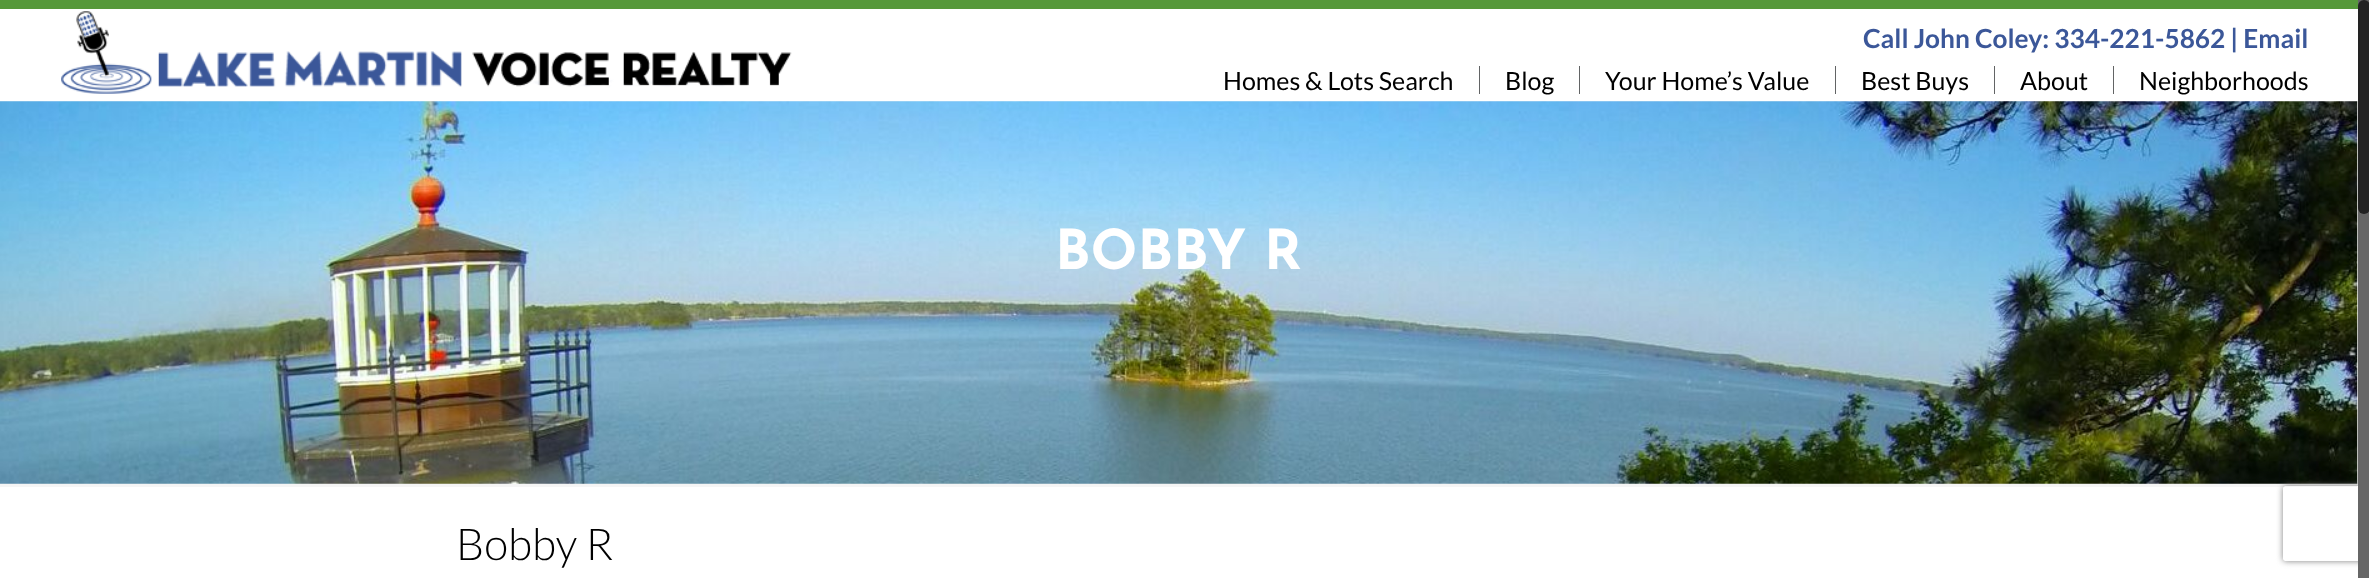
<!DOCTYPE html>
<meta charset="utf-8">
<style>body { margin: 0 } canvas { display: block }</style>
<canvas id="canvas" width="2369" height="578"></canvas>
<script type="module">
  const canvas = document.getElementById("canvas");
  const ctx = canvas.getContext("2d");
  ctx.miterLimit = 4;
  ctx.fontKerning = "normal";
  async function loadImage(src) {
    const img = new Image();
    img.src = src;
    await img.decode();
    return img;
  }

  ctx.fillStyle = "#ffffff";
  ctx.fillRect(0, 0, 2369, 578);
  ctx.fillStyle = "#56993a";
  ctx.fillRect(0, 0, 2358, 9);
  ctx.drawImage(await loadImage("img1.png"), 61, 11, 731, 83);
  ctx.font = "bold 26.25px Lato";
  ctx.fillStyle = "#3b5799";
  ctx.fillText("Call John Coley: 334-221-5862 | Email", 1863, 48);
  ctx.fillStyle = "#626465";
  ctx.fillRect(1479, 66, 1, 28);
  ctx.font = "25px Lato";
  ctx.fillStyle = "#000000";
  ctx.fillText("Homes & Lots Search", 1223, 90);
  ctx.fillStyle = "#626465";
  ctx.fillRect(1579, 66, 1, 28);
  ctx.fillStyle = "#000000";
  ctx.fillText("Blog", 1505, 90);
  ctx.fillStyle = "#626465";
  ctx.fillRect(1835, 66, 1, 28);
  ctx.fillStyle = "#000000";
  ctx.fillText("Your Home’s Value", 1605, 90);
  ctx.fillStyle = "#626465";
  ctx.fillRect(1994, 66, 1, 28);
  ctx.fillStyle = "#000000";
  ctx.fillText("Best Buys", 1861, 90);
  ctx.fillStyle = "#626465";
  ctx.fillRect(2113, 66, 1, 28);
  ctx.fillStyle = "#000000";
  ctx.fillText("About", 2020, 90);
  ctx.fillText("Neighborhoods", 2139, 90);
  ctx.fillStyle = "#f7f7f7";
  ctx.fillRect(0, 101, 2358, 383);
  ctx.drawImage(await loadImage("img2.png"), 0, 101, 2358, 383);
  ctx.font = "bold 55px Josefin Sans";
  ctx.fillStyle = "#ffffff";
  ctx.fillText("BOBBY R", 1055, 269);
  ctx.save();
  ctx.beginPath();
  ctx.moveTo(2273, 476);
  ctx.lineTo(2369, 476);
  ctx.lineTo(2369, 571);
  ctx.lineTo(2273, 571);
  ctx.closePath();
  ctx.moveTo(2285.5, 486);
  ctx.lineTo(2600.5, 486);
  ctx.bezierCurveTo(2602, 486, 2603, 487, 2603, 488.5);
  ctx.lineTo(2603, 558.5);
  ctx.bezierCurveTo(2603, 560, 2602, 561, 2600.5, 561);
  ctx.lineTo(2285.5, 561);
  ctx.bezierCurveTo(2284, 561, 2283, 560, 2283, 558.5);
  ctx.lineTo(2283, 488.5);
  ctx.bezierCurveTo(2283, 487, 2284, 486, 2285.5, 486);
  ctx.closePath();
  ctx.clip("evenodd");
  ctx.fillStyle = "#808080";
  ctx.filter = "blur(3px)";
  ctx.beginPath();
  ctx.roundRect(2283, 486, 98, 75, 2.5);
  ctx.fill();
  ctx.filter = "none";
  ctx.restore();
  ctx.fillStyle = "rgba(0, 0, 0, 0.04)";
  ctx.fillRect(0, 484, 2357, 3);
  ctx.font = "300 44px Lato";
  ctx.fillStyle = "#000000";
  ctx.fillText("Bobby R", 456, 560);
  ctx.fillStyle = "#666666";
  ctx.fillRect(2358, 0, 11, 578);
  ctx.fillStyle = "#222222";
  ctx.beginPath();
  ctx.roundRect(2358, 0, 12, 214, 6);
  ctx.fill();
</script>
